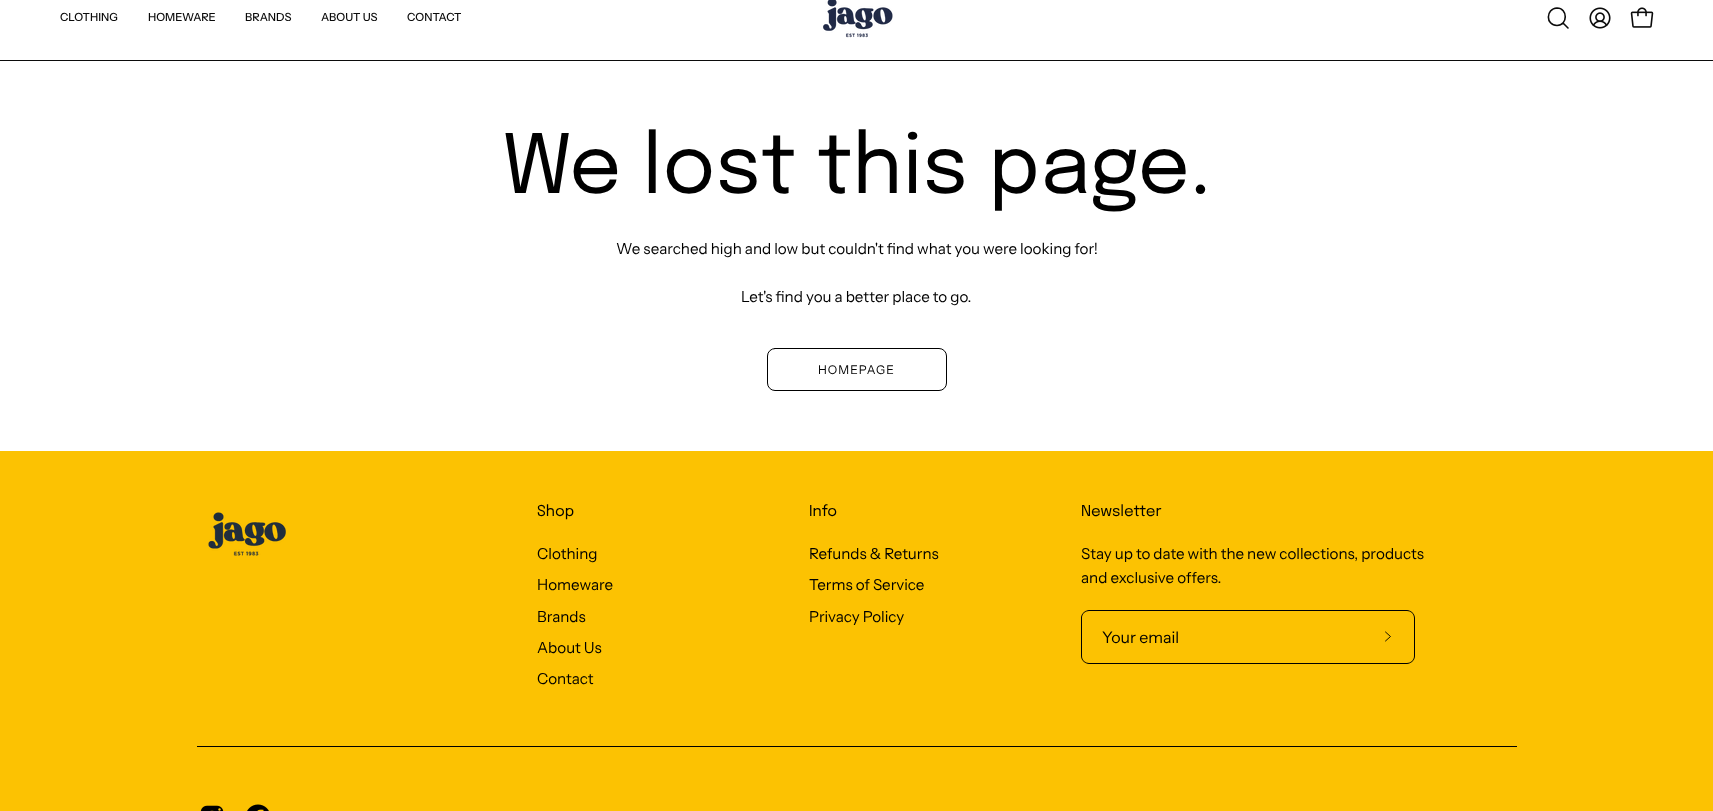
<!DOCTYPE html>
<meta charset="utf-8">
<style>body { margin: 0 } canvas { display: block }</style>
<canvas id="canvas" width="1713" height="811"></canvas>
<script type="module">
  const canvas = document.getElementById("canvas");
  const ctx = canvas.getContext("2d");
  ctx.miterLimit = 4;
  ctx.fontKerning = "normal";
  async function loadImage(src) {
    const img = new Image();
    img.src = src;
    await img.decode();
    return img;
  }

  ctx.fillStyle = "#ffffff";
  ctx.fillRect(0, 0, 1713, 811);
  ctx.font = "500 11.25px Instrument Sans";
  ctx.fillStyle = "#0b0b0b";
  ctx.fillText("CLOTHING", 60, 21);
  ctx.fillText("HOMEWARE", 148, 21);
  ctx.fillText("BRANDS", 245, 21);
  ctx.fillText("ABOUT US", 321, 21);
  ctx.fillText("CONTACT", 407, 21);
  ctx.beginPath();
  ctx.moveTo(1557, 25.5);
  ctx.bezierCurveTo(1568, 25.5, 1568, 8, 1557, 8);
  ctx.bezierCurveTo(1545.5, 8.5, 1545.5, 25.5, 1557, 25.5);
  ctx.closePath();
  ctx.moveTo(1563, 23);
  ctx.lineTo(1568, 28);
  ctx.strokeStyle = "#0b0b0b";
  ctx.lineWidth = 1.6;
  ctx.lineCap = "round";
  ctx.lineJoin = "round";
  ctx.stroke();
  ctx.drawImage(await loadImage("img1.png"), 1589, 7, 22, 22);
  ctx.drawImage(await loadImage("img2.png"), 1630, 7, 24, 21);
  ctx.drawImage(await loadImage("img3.png"), 823, 0, 70, 38);
  ctx.fillRect(0, 60, 1713, 1);
  ctx.font = "81.5px Epilogue";
  ctx.fillStyle = "#000000";
  ctx.fillText("We lost this page.", 502, 193);
  ctx.font = "15.2px Instrument Sans";
  ctx.fillText("We searched high and low but couldn't find what you were looking for!", 616, 254);
  ctx.fillText("Let's find you a better place to go.", 741, 302);
  ctx.beginPath();
  ctx.roundRect(767.5, 348.5, 179, 42, 7.5);
  ctx.strokeStyle = "#000000";
  ctx.lineWidth = 1;
  ctx.lineJoin = "miter";
  ctx.stroke();
  ctx.letterSpacing = "1px";
  ctx.font = "12px Instrument Sans";
  ctx.fillText("HOMEPAGE", 818, 374);
  ctx.fillStyle = "#fcc202";
  ctx.fillRect(0, 451, 1713, 360);
  ctx.drawImage(await loadImage("img4.png"), 208, 512, 78, 44);
  ctx.letterSpacing = "0px";
  ctx.font = "15px Epilogue";
  ctx.fillStyle = "#000000";
  ctx.fillText("Shop", 537, 516);
  ctx.font = "15.2px Instrument Sans";
  ctx.fillText("Clothing", 537, 559);
  ctx.fillText("Homeware", 537, 590);
  ctx.fillText("Brands", 537, 622);
  ctx.fillText("About Us", 537, 653);
  ctx.fillText("Contact", 537, 684);
  ctx.font = "15px Epilogue";
  ctx.fillText("Info", 809, 516);
  ctx.font = "15.2px Instrument Sans";
  ctx.fillText("Refunds & Returns", 809, 559);
  ctx.fillText("Terms of Service", 809, 590);
  ctx.fillText("Privacy Policy", 809, 622);
  ctx.font = "15px Epilogue";
  ctx.fillText("Newsletter", 1081, 516);
  ctx.font = "15.2px Instrument Sans";
  ctx.fillText("Stay up to date with the new collections, products", 1081, 559);
  ctx.fillText("and exclusive offers.", 1081, 583);
  ctx.beginPath();
  ctx.moveTo(1089, 610);
  ctx.lineTo(1361, 610);
  ctx.lineTo(1361, 664);
  ctx.lineTo(1089, 664);
  ctx.bezierCurveTo(1085, 664, 1081, 660, 1081, 656);
  ctx.lineTo(1081, 618);
  ctx.bezierCurveTo(1081, 614, 1085, 610, 1089, 610);
  ctx.closePath();
  ctx.moveTo(1089, 611);
  ctx.lineTo(1361, 611);
  ctx.lineTo(1361, 663);
  ctx.lineTo(1089, 663);
  ctx.bezierCurveTo(1085, 663, 1082, 660, 1082, 656);
  ctx.lineTo(1082, 618);
  ctx.bezierCurveTo(1082, 614, 1085, 611, 1089, 611);
  ctx.closePath();
  ctx.fill("evenodd");
  ctx.font = "16px Instrument Sans";
  ctx.fillText("Your email", 1102, 643);
  ctx.beginPath();
  ctx.moveTo(1361, 610);
  ctx.lineTo(1407, 610);
  ctx.bezierCurveTo(1411, 610, 1415, 614, 1415, 618);
  ctx.lineTo(1415, 656);
  ctx.bezierCurveTo(1415, 660, 1411, 664, 1407, 664);
  ctx.lineTo(1361, 664);
  ctx.closePath();
  ctx.moveTo(1361, 611);
  ctx.lineTo(1407, 611);
  ctx.bezierCurveTo(1411, 611, 1414, 614, 1414, 618);
  ctx.lineTo(1414, 656);
  ctx.bezierCurveTo(1414, 660, 1411, 663, 1407, 663);
  ctx.lineTo(1361, 663);
  ctx.closePath();
  ctx.fill("evenodd");
  ctx.beginPath();
  ctx.moveTo(1385.5, 632);
  ctx.lineTo(1390.5, 636.5);
  ctx.lineTo(1385.5, 641);
  ctx.lineWidth = 0.9;
  ctx.lineJoin = "round";
  ctx.stroke();
  ctx.fillRect(197, 746, 1320, 1);
  ctx.drawImage(await loadImage("img5.png"), 200, 805, 24, 6);
  ctx.drawImage(await loadImage("img6.png"), 247, 804, 22, 7);
</script>
